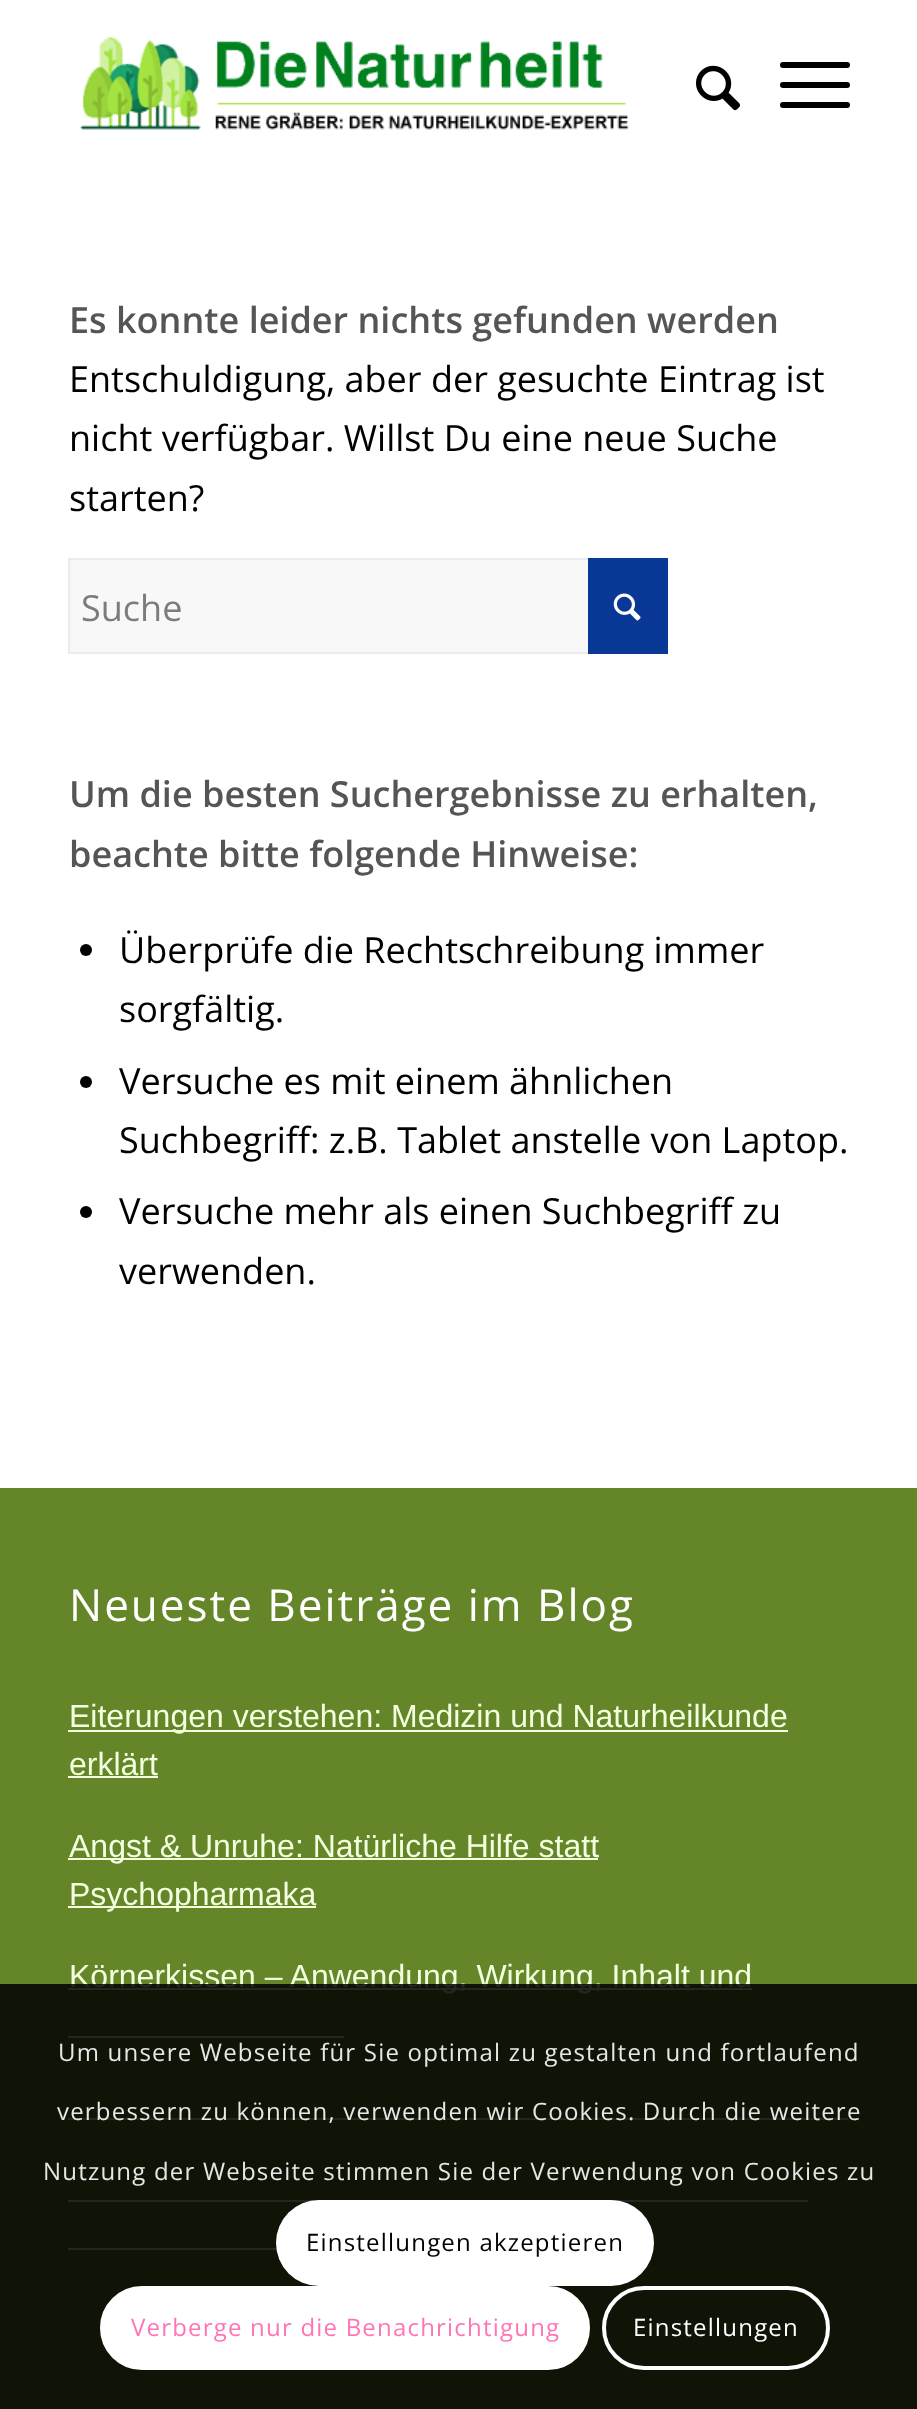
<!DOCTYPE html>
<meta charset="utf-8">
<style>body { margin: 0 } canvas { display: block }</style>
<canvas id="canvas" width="917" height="2409"></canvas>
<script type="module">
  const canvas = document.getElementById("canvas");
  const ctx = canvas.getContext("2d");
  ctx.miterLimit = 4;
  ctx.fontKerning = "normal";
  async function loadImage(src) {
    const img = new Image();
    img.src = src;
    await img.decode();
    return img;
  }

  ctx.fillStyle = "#ffffff";
  ctx.fillRect(0, 0, 917, 2409);
  ctx.drawImage(await loadImage("img1.png"), 80, 36, 549, 94);
  ctx.drawImage(await loadImage("img2.png"), 696, 65, 44, 46);
  ctx.fillStyle = "#000000";
  ctx.beginPath();
  ctx.roundRect(780, 82, 70, 6, 3);
  ctx.fill();
  ctx.beginPath();
  ctx.roundRect(780, 62, 70, 6, 3);
  ctx.fill();
  ctx.beginPath();
  ctx.roundRect(780, 102, 70, 6, 3);
  ctx.fill();
  ctx.font = "600 36px Open Sans";
  ctx.fillStyle = "#555555";
  ctx.fillText("Es konnte leider nichts gefunden werden", 69, 333);
  ctx.font = "36px Open Sans";
  ctx.fillStyle = "#000000";
  ctx.fillText("Entschuldigung, aber der gesuchte Eintrag ist", 69, 392);
  ctx.fillText("nicht verfügbar. Willst Du eine neue Suche", 69, 451);
  ctx.fillText("starten?", 69, 511);
  ctx.fillStyle = "#f8f8f8";
  ctx.fillRect(70, 560, 518, 92);
  ctx.strokeStyle = "#ebebeb";
  ctx.lineWidth = 2;
  ctx.strokeRect(69, 559, 598, 94);
  ctx.fillStyle = "#7c7c7c";
  ctx.fillText("Suche", 81, 621);
  ctx.fillStyle = "#093896";
  ctx.fillRect(588, 558, 80, 96);
  ctx.drawImage(await loadImage("img3.png"), 613, 593, 28, 28);
  ctx.font = "600 36px Open Sans";
  ctx.fillStyle = "#555555";
  ctx.fillText("Um die besten Suchergebnisse zu erhalten,", 69, 807);
  ctx.fillText("beachte bitte folgende Hinweise:", 69, 867);
  ctx.fillStyle = "#000000";
  ctx.beginPath();
  ctx.arc(86, 950, 6, 0, Math.PI * 2);
  ctx.fill();
  ctx.font = "36px Open Sans";
  ctx.fillText("Überprüfe die Rechtschreibung immer", 119, 963);
  ctx.fillText("sorgfältig.", 119, 1022);
  ctx.beginPath();
  ctx.arc(86, 1082, 6, 0, Math.PI * 2);
  ctx.fill();
  ctx.fillText("Versuche es mit einem ähnlichen", 119, 1094);
  ctx.fillText("Suchbegriff: z.B. Tablet anstelle von Laptop.", 119, 1153);
  ctx.beginPath();
  ctx.arc(86, 1212, 6, 0, Math.PI * 2);
  ctx.fill();
  ctx.fillText("Versuche mehr als einen Suchbegriff zu", 119, 1224);
  ctx.fillText("verwenden.", 119, 1284);
  ctx.fillStyle = "#658529";
  ctx.fillRect(0, 1488, 917, 921);
  ctx.letterSpacing = "2px";
  ctx.font = "44px Open Sans";
  ctx.fillStyle = "#ffffff";
  ctx.fillText("Neueste Beiträge im Blog", 69, 1621);
  ctx.fillStyle = "#f3ffde";
  ctx.fillRect(68, 1730, 720, 2);
  ctx.letterSpacing = "0px";
  ctx.font = "32px Liberation Sans";
  ctx.fillText("Eiterungen verstehen: Medizin und Naturheilkunde", 69, 1727);
  ctx.fillText("erklärt", 69, 1775);
  ctx.fillRect(68, 1776, 90, 2);
  ctx.fillRect(68, 1858, 530, 2);
  ctx.fillText("Angst & Unruhe: Natürliche Hilfe statt", 69, 1857);
  ctx.fillRect(68, 1906, 248, 2);
  ctx.fillText("Psychopharmaka", 69, 1905);
  ctx.fillRect(68, 1988, 684, 2);
  ctx.fillText("Körnerkissen – Anwendung, Wirkung, Inhalt und", 69, 1987);
  ctx.fillRect(68, 2036, 276, 2);
  ctx.fillRect(68, 2118, 780, 2);
  ctx.fillRect(68, 2200, 740, 2);
  ctx.fillRect(68, 2248, 209, 2);
  ctx.fillStyle = "rgba(0, 0, 0, 0.85)";
  ctx.fillRect(0, 1984, 917, 425);
  ctx.letterSpacing = "1.2px";
  ctx.font = "24px Open Sans";
  ctx.fillStyle = "#e7e7e6";
  ctx.fillText("Um unsere Webseite für Sie optimal zu gestalten und fortlaufend", 58, 2061);
  ctx.fillText("verbessern zu können, verwenden wir Cookies. Durch die weitere", 57, 2120);
  ctx.fillText("Nutzung der Webseite stimmen Sie der Verwendung von Cookies zu", 43, 2180);
  ctx.fillStyle = "#ffffff";
  ctx.beginPath();
  ctx.roundRect(276, 2200, 378, 86, 43);
  ctx.fill();
  ctx.fillStyle = "#000000";
  ctx.fillText("Einstellungen akzeptieren", 306, 2251);
  ctx.fillStyle = "#ffffff";
  ctx.beginPath();
  ctx.roundRect(102, 2288, 486, 80, 40);
  ctx.fill();
  ctx.strokeStyle = "#ffffff";
  ctx.lineWidth = 4;
  ctx.stroke();
  ctx.fillStyle = "#ff75b5";
  ctx.fillText("Verberge nur die Benachrichtigung", 131, 2336);
  ctx.beginPath();
  ctx.roundRect(604, 2288, 224, 80, 40);
  ctx.stroke();
  ctx.fillStyle = "#ffffff";
  ctx.fillText("Einstellungen", 633, 2336);
</script>
